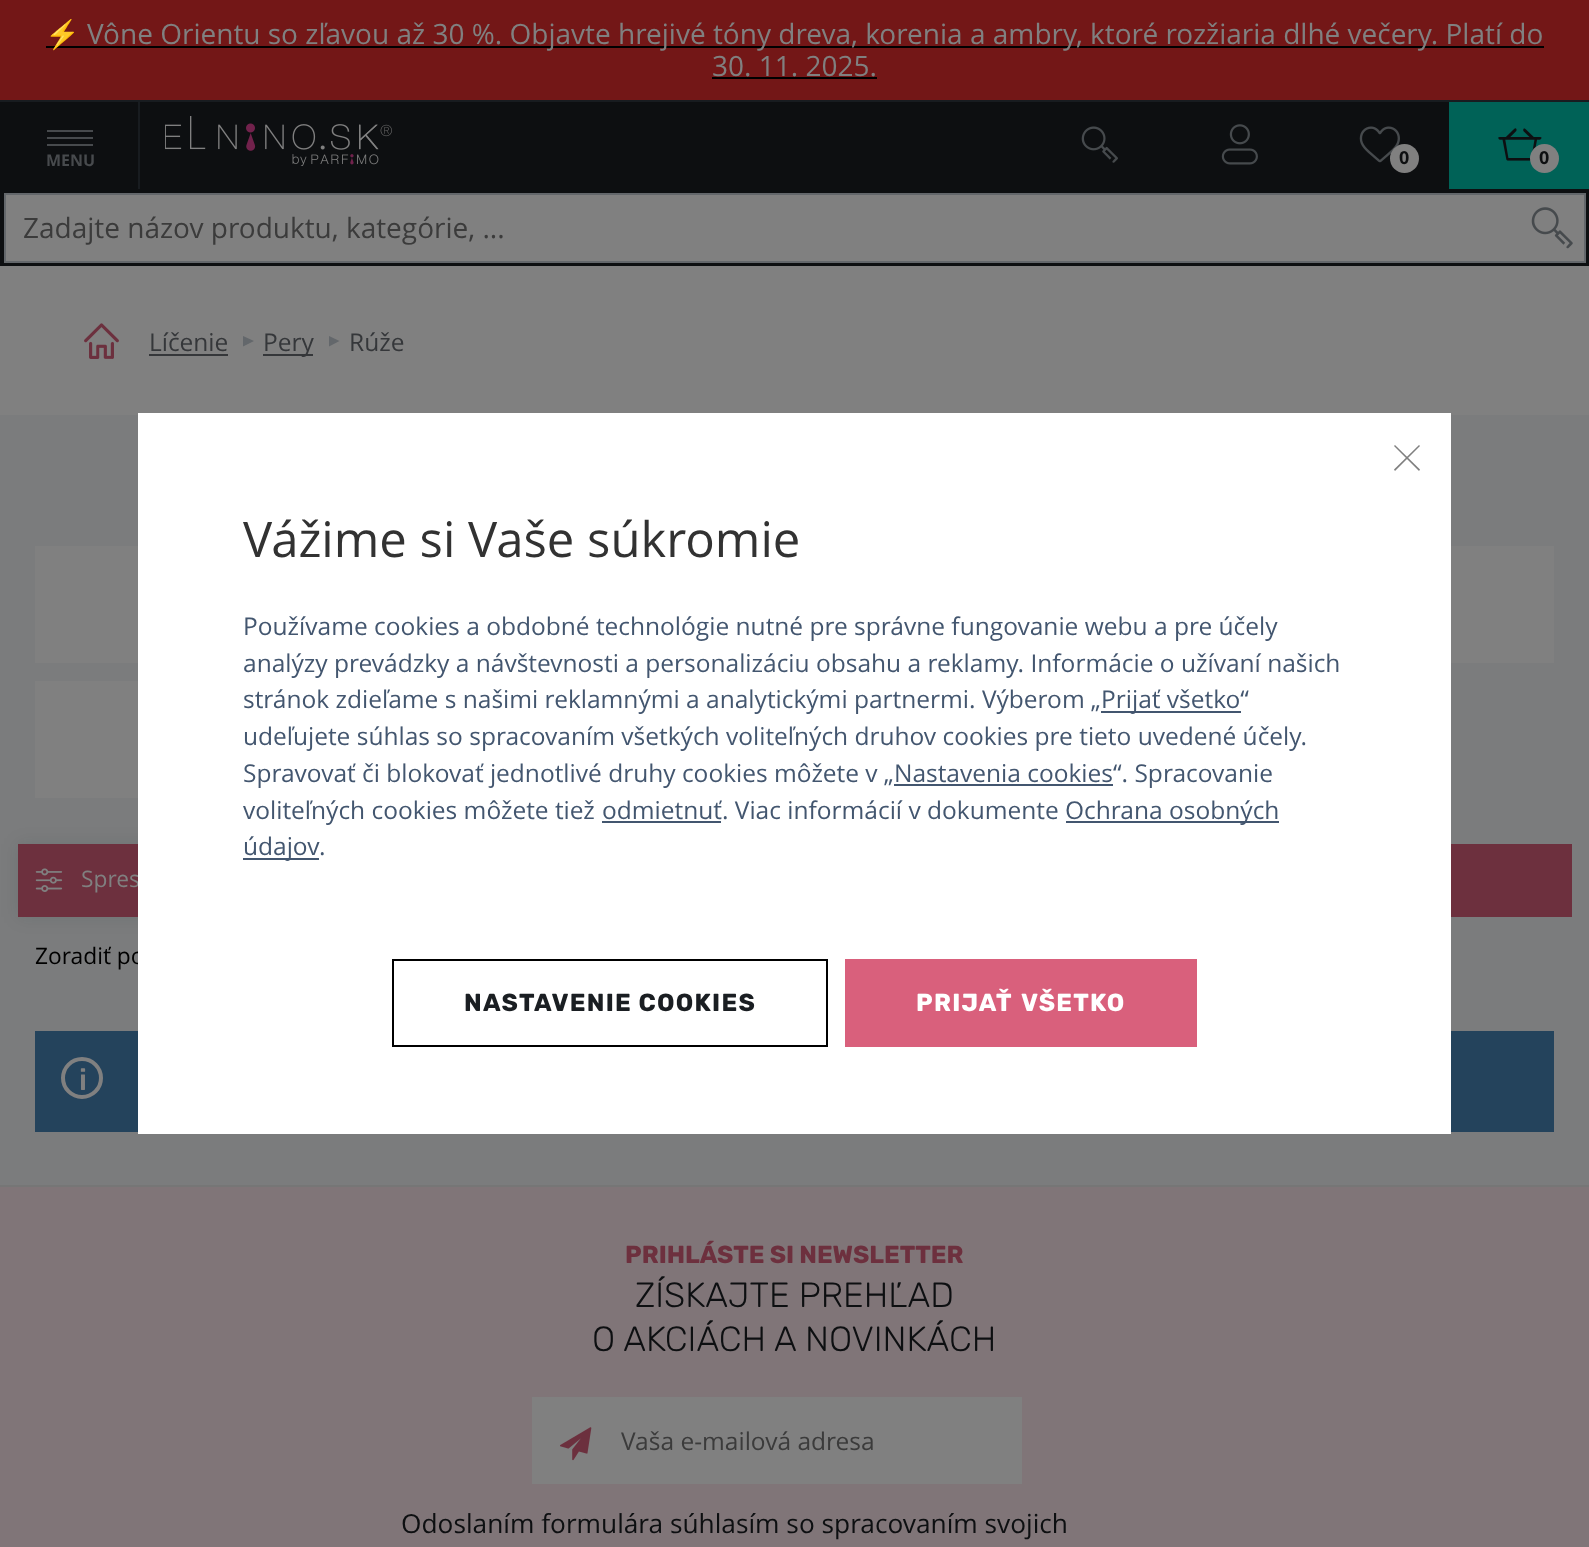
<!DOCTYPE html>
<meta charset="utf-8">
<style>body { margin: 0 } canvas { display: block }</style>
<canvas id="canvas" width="1589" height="1547"></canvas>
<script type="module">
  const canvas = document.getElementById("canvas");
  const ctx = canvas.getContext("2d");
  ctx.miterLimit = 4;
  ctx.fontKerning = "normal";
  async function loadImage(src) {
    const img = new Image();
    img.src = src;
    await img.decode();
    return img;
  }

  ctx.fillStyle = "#808080";
  ctx.fillRect(0, 0, 1589, 1547);
  ctx.fillStyle = "#731717";
  ctx.fillRect(0, 0, 1589, 100);
  ctx.fillStyle = "#181c20";
  ctx.fillRect(0, 100, 1589, 2);
  ctx.fillStyle = "#000000";
  ctx.fillRect(46, 46, 1498, 2);
  ctx.font = "28px Noto Color Emoji";
  ctx.fillStyle = "#808080";
  ctx.fillText("⚡", 45, 44);
  ctx.font = "28px Open Sans";
  ctx.fillText("Vône Orientu so zľavou až 30 %. Objavte hrejivé tóny dreva, korenia a ambry, ktoré rozžiaria dlhé večery. Platí do", 87, 44);
  ctx.fillText("30. 11. 2025.", 712, 76);
  ctx.fillStyle = "#000000";
  ctx.fillRect(712, 77, 165, 2);
  ctx.fillStyle = "#0d0f11";
  ctx.fillRect(0, 102, 1589, 164);
  ctx.fillStyle = "#181c20";
  ctx.fillRect(138, 102, 2, 87);
  ctx.fillStyle = "#474a4d";
  ctx.fillRect(47, 137, 46, 2);
  ctx.fillRect(47, 130, 46, 2);
  ctx.fillRect(47, 144, 46, 2);
  ctx.font = "bold 16px Open Sans";
  ctx.fillText("MENU", 46, 166);
  ctx.drawImage(await loadImage("img1.png"), 165, 116, 227, 50);
  ctx.drawImage(await loadImage("img2.png"), 1081, 126, 37, 37);
  ctx.drawImage(await loadImage("img3.png"), 1221, 124, 37, 41);
  ctx.drawImage(await loadImage("img4.png"), 1359, 126, 41, 37);
  ctx.fillStyle = "#808080";
  ctx.beginPath();
  ctx.arc(1404.5, 158.5, 14.5, 0, Math.PI * 2);
  ctx.fill();
  ctx.font = "bold 18px Open Sans";
  ctx.fillStyle = "#0d0f11";
  ctx.fillText("0", 1399, 164);
  ctx.fillStyle = "#006257";
  ctx.fillRect(1449, 102, 140, 87);
  ctx.drawImage(await loadImage("img5.png"), 1498, 128, 44, 33);
  ctx.fillStyle = "#808080";
  ctx.beginPath();
  ctx.arc(1544.5, 158.5, 14.5, 0, Math.PI * 2);
  ctx.fill();
  ctx.fillStyle = "#0d0f11";
  ctx.fillText("0", 1539, 164);
  ctx.fillStyle = "#808080";
  ctx.beginPath();
  ctx.rect(5, 194, 1580, 68);
  ctx.fill();
  ctx.strokeStyle = "#63676b";
  ctx.lineWidth = 2;
  ctx.stroke();
  ctx.font = "28px Open Sans";
  ctx.fillStyle = "#3b3b3b";
  ctx.fillText("Zadajte názov produktu, kategórie, ...", 23, 238);
  ctx.drawImage(await loadImage("img6.png"), 1531, 207, 42, 42);
  ctx.drawImage(await loadImage("img7.png"), 84, 323, 35, 36);
  ctx.font = "24.5px Open Sans";
  ctx.fillStyle = "#35373a";
  ctx.fillText("Líčenie", 149, 351);
  ctx.fillRect(149, 354, 79, 2);
  ctx.fillStyle = "#63676b";
  ctx.beginPath();
  ctx.moveTo(243, 346.5);
  ctx.lineTo(243, 336);
  ctx.lineTo(254, 341);
  ctx.closePath();
  ctx.fill();
  ctx.fillStyle = "#35373a";
  ctx.fillRect(263, 354, 50, 2);
  ctx.fillText("Pery", 263, 351);
  ctx.fillStyle = "#63676b";
  ctx.beginPath();
  ctx.moveTo(329, 346.5);
  ctx.lineTo(329, 336);
  ctx.lineTo(339.5, 341);
  ctx.closePath();
  ctx.fill();
  ctx.fillStyle = "#35373a";
  ctx.fillText("Rúže", 349, 351);
  ctx.fillStyle = "#7b7c7d";
  ctx.fillRect(0, 415, 1589, 770);
  ctx.fillStyle = "#808080";
  ctx.fillRect(35, 546, 103, 117);
  ctx.fillRect(1451, 546, 103, 117);
  ctx.fillRect(35, 681, 103, 117);
  ctx.fillStyle = "rgba(13, 15, 17, 0.1)";
  ctx.filter = "blur(9px)";
  ctx.beginPath();
  ctx.rect(18, 844, 777, 73);
  ctx.fill();
  ctx.filter = "none";
  ctx.fillStyle = "#6d303e";
  ctx.fillRect(18, 844, 120, 73);
  ctx.drawImage(await loadImage("img8.png"), 35, 868, 28, 24);
  ctx.font = "22.75px Open Sans";
  ctx.fillStyle = "#808080";
  ctx.fillText("Spres", 81, 887);
  ctx.fillStyle = "#6d303e";
  ctx.fillRect(1451, 844, 121, 73);
  ctx.fillStyle = "#000000";
  ctx.fillText("Zoradiť po", 35, 964);
  ctx.fillStyle = "#24435c";
  ctx.fillRect(35, 1031, 1519, 101);
  ctx.beginPath();
  ctx.arc(82, 1078, 19, 0, Math.PI * 2);
  ctx.strokeStyle = "#808080";
  ctx.lineWidth = 4;
  ctx.stroke();
  ctx.font = "500 30px Rubik";
  ctx.fillStyle = "#808080";
  ctx.fillText("i", 79, 1090);
  ctx.fillStyle = "#807578";
  ctx.fillRect(0, 1187, 1589, 360);
  ctx.fillStyle = "#767676";
  ctx.fillRect(0, 1185, 1589, 2);
  ctx.font = "bold 24.5px Rubik";
  ctx.fillStyle = "#6d303e";
  ctx.fillText("PRIHLÁSTE SI NEWSLETTER", 625, 1263);
  ctx.font = "300 35px Rubik";
  ctx.fillStyle = "#0d0f11";
  ctx.fillText("ZÍSKAJTE PREHĽAD", 635, 1307);
  ctx.fillText("O AKCIÁCH A NOVINKÁCH", 592, 1351);
  ctx.fillStyle = "#808080";
  ctx.fillRect(532, 1397, 490, 87);
  ctx.drawImage(await loadImage("img9.png"), 560, 1427, 32, 34);
  ctx.font = "24.5px Open Sans";
  ctx.fillStyle = "#3b3b3b";
  ctx.fillText("Vaša e-mailová adresa", 621, 1450);
  ctx.font = "26.25px Open Sans";
  ctx.fillStyle = "#0d0f11";
  ctx.fillText("Odoslaním formulára súhlasím so spracovaním svojich", 401, 1533);
  ctx.fillStyle = "#ffffff";
  ctx.fillRect(138, 413, 1313, 721);
  ctx.fillStyle = "#808080";
  ctx.beginPath();
  ctx.moveTo(1395, 445);
  ctx.lineTo(1420, 469.5);
  ctx.lineTo(1419, 471);
  ctx.lineTo(1394, 446);
  ctx.closePath();
  ctx.fill();
  ctx.beginPath();
  ctx.moveTo(1394, 469.5);
  ctx.lineTo(1419, 445);
  ctx.lineTo(1420, 446);
  ctx.lineTo(1395, 471);
  ctx.closePath();
  ctx.fill();
  ctx.font = "49px Open Sans";
  ctx.fillStyle = "#323232";
  ctx.fillText("Vážime si Vaše súkromie", 243, 557);
  ctx.font = "24.5px Open Sans";
  ctx.fillStyle = "#43566f";
  ctx.fillText("Používame cookies a obdobné technológie nutné pre správne fungovanie webu a pre účely", 243, 635);
  ctx.fillText("analýzy prevádzky a návštevnosti a personalizáciu obsahu a reklamy. Informácie o užívaní našich", 243, 672);
  ctx.fillText("stránok zdieľame s našimi reklamnými a analytickými partnermi. Výberom „", 243, 708);
  ctx.fillRect(1101, 711, 140, 2);
  ctx.fillText("Prijať všetko“", 1101, 708);
  ctx.fillText("udeľujete súhlas so spracovaním všetkých voliteľných druhov cookies pre tieto uvedené účely.", 243, 745);
  ctx.fillText("Spravovať či blokovať jednotlivé druhy cookies môžete v „Nastavenia cookies“. Spracovanie", 243, 782);
  ctx.fillRect(894, 784, 219, 2);
  ctx.fillText("voliteľných cookies môžete tiež", 243, 819);
  ctx.fillText("odmietnuť. Viac informácií v dokumente", 602, 819);
  ctx.fillRect(602, 821, 119, 2);
  ctx.fillRect(1066, 821, 213, 2);
  ctx.fillText("Ochrana osobných", 1065, 819);
  ctx.fillRect(243, 858, 76, 2);
  ctx.fillText("údajov", 243, 855);
  ctx.fillText(".", 319, 855);
  ctx.strokeStyle = "#000000";
  ctx.lineWidth = 2;
  ctx.strokeRect(393, 960, 434, 86);
  ctx.letterSpacing = "1.25px";
  ctx.font = "bold 24.5px Rubik";
  ctx.fillStyle = "#1a1e22";
  ctx.fillText("NASTAVENIE COOKIES", 464, 1011);
  ctx.fillStyle = "#d9607c";
  ctx.fillRect(845, 959, 352, 88);
  ctx.wordSpacing = "3px";
  ctx.fillStyle = "#ffffff";
  ctx.fillText("PRIJAŤ VŠETKO", 916, 1011);
</script>
